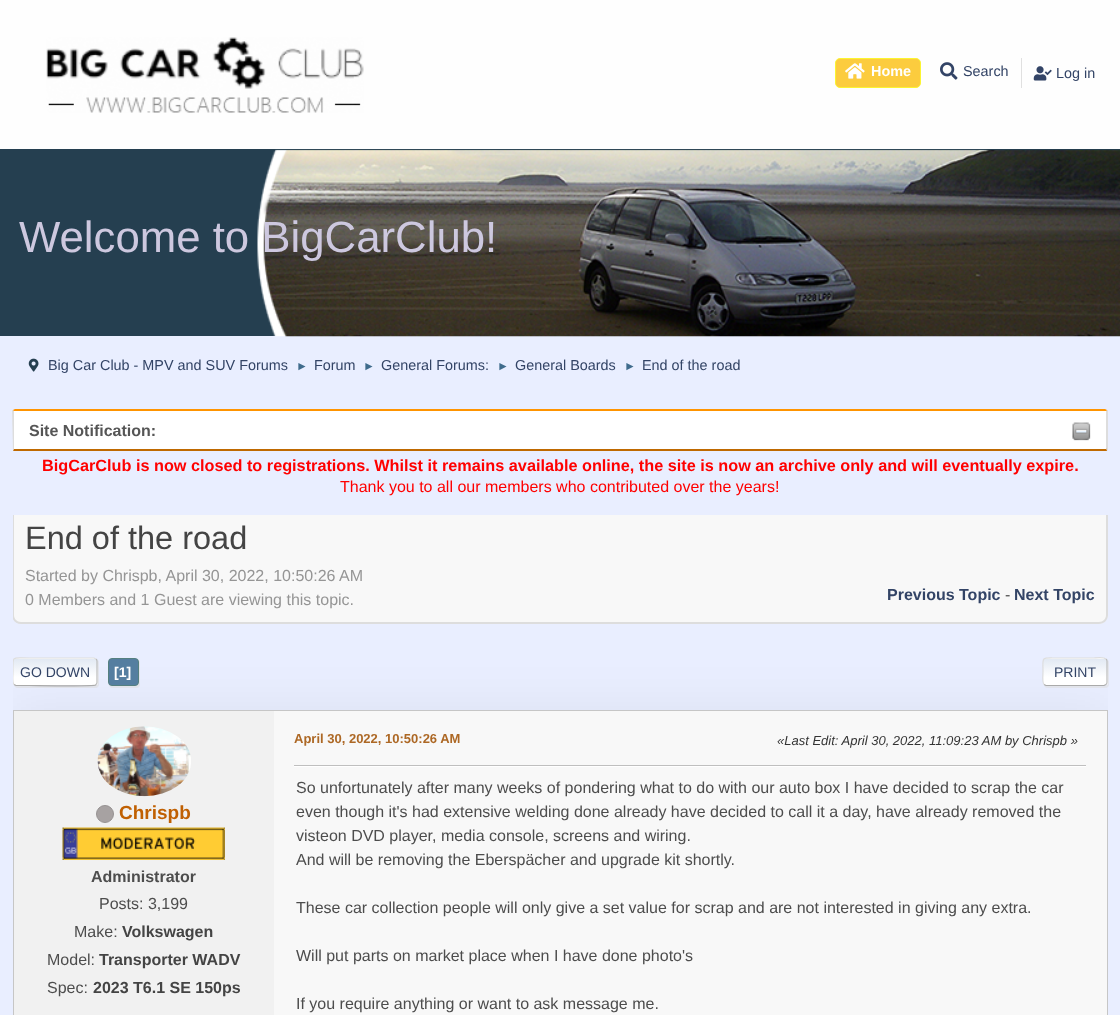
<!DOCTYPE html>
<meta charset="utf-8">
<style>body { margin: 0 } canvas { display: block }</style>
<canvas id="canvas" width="1120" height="1015"></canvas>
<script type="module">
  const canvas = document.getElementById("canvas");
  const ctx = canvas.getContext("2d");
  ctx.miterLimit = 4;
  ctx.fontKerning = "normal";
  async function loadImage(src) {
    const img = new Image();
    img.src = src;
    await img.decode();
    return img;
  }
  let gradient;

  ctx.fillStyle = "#e9eeff";
  ctx.fillRect(0, 0, 1120, 1015);
  ctx.fillStyle = "#fefefe";
  ctx.fillRect(0, 0, 1120, 149);
  ctx.drawImage(await loadImage("img1.png"), 46, 37, 318, 76);
  ctx.fillStyle = "#e0e0e0";
  ctx.fillRect(1021, 58, 1, 30);
  ctx.fillStyle = "#fccc3e";
  ctx.beginPath();
  ctx.roundRect(835.5, 58.5, 85, 29, 4.5);
  ctx.fill();
  ctx.strokeStyle = "#fbf531";
  ctx.stroke();
  ctx.drawImage(await loadImage("img2.png"), 845, 63, 20, 16);
  ctx.font = "bold 14.4px Liberation Sans";
  ctx.fillStyle = "#ffffff";
  ctx.fillText("Home", 871, 76);
  ctx.drawImage(await loadImage("img3.png"), 940, 62, 18, 18);
  ctx.font = "14.4px Liberation Sans";
  ctx.fillStyle = "#334466";
  ctx.fillText("Search", 963, 76);
  ctx.drawImage(await loadImage("img4.png"), 1033, 66, 19, 15);
  ctx.fillText("Log in", 1056, 78);
  ctx.fillStyle = "#253f50";
  ctx.fillRect(0, 149, 1120, 187);
  ctx.drawImage(await loadImage("img5.png"), 257, 149, 863, 188);
  ctx.font = "43.75px Liberation Sans";
  ctx.fillStyle = "#cdc8df";
  ctx.fillText("Welcome to BigCarClub!", 19, 252);
  ctx.drawImage(await loadImage("img6.png"), 28, 358, 11, 14);
  ctx.font = "14.4px Liberation Sans";
  ctx.fillStyle = "#334466";
  ctx.fillText("Big Car Club - MPV and SUV Forums", 48, 370);
  ctx.font = "12px Liberation Sans";
  ctx.fillStyle = "#3f6b8c";
  ctx.fillText("►", 296, 370);
  ctx.font = "14.4px Liberation Sans";
  ctx.fillStyle = "#334466";
  ctx.fillText("Forum", 314, 370);
  ctx.font = "12px Liberation Sans";
  ctx.fillStyle = "#3f6b8c";
  ctx.fillText("►", 363, 370);
  ctx.font = "14.4px Liberation Sans";
  ctx.fillStyle = "#334466";
  ctx.fillText("General Forums:", 381, 370);
  ctx.font = "12px Liberation Sans";
  ctx.fillStyle = "#3f6b8c";
  ctx.fillText("►", 497, 370);
  ctx.font = "14.4px Liberation Sans";
  ctx.fillStyle = "#334466";
  ctx.fillText("General Boards", 515, 370);
  ctx.font = "12px Liberation Sans";
  ctx.fillStyle = "#3f6b8c";
  ctx.fillText("►", 624, 370);
  ctx.font = "14.4px Liberation Sans";
  ctx.fillStyle = "#334466";
  ctx.fillText("End of the road", 642, 370);
  ctx.fillStyle = "#ffffff";
  ctx.beginPath();
  ctx.moveTo(15, 411);
  ctx.lineTo(1106, 411);
  ctx.lineTo(1106, 449);
  ctx.lineTo(14, 449);
  ctx.lineTo(14, 411);
  ctx.closePath();
  ctx.fill();
  ctx.fillStyle = "#ff9400";
  ctx.beginPath();
  ctx.moveTo(15, 409);
  ctx.lineTo(13, 410);
  ctx.lineTo(14, 412);
  ctx.lineTo(14, 411);
  ctx.lineTo(1106, 411);
  ctx.lineTo(1106, 412);
  ctx.lineTo(1107, 410);
  ctx.lineTo(1105, 409);
  ctx.closePath();
  ctx.fill();
  ctx.fillStyle = "#dddddd";
  ctx.beginPath();
  ctx.moveTo(1108, 451);
  ctx.lineTo(1106, 448);
  ctx.lineTo(1106, 412);
  ctx.lineTo(1107, 410);
  ctx.lineTo(1108, 410);
  ctx.closePath();
  ctx.fill();
  ctx.fillStyle = "#bf6900";
  ctx.beginPath();
  ctx.moveTo(1107, 451);
  ctx.lineTo(13, 451);
  ctx.lineTo(14, 448);
  ctx.lineTo(14, 449);
  ctx.lineTo(1106, 449);
  ctx.lineTo(1106, 448);
  ctx.closePath();
  ctx.fill();
  ctx.fillStyle = "#dddddd";
  ctx.beginPath();
  ctx.moveTo(12, 410);
  ctx.lineTo(13, 410);
  ctx.lineTo(14, 412);
  ctx.lineTo(14, 448);
  ctx.lineTo(13, 451);
  ctx.closePath();
  ctx.fill();
  ctx.font = "bold 16px Liberation Sans";
  ctx.fillStyle = "#555555";
  ctx.fillText("Site Notification:", 29, 436);
  ctx.drawImage(await loadImage("img7.png"), 1072, 422, 19, 19);
  ctx.font = "bold 16.25px Liberation Sans";
  ctx.fillStyle = "#ff0000";
  ctx.fillText("BigCarClub is now closed to registrations. Whilst it remains available online, the site is now an archive only and will eventually expire.", 42, 471);
  ctx.font = "16px Liberation Sans";
  ctx.fillText("Thank you to all our members who contributed over the years!", 340, 492);
  ctx.fillStyle = "#f8f8f8";
  ctx.beginPath();
  ctx.roundRect(13, 515, 1095, 109, [0, 0, 9, 9]);
  ctx.fill();
  ctx.save();
  ctx.beginPath();
  ctx.rect(13, 515, 1095, 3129);
  ctx.clip();
  ctx.fillStyle = "#dddddd";
  ctx.beginPath();
  ctx.moveTo(12, 506);
  ctx.lineTo(1108, 506);
  ctx.lineTo(1108, 615);
  ctx.bezierCurveTo(1108, 620, 1104, 624, 1099, 624);
  ctx.lineTo(21, 624);
  ctx.bezierCurveTo(16, 624, 12, 620, 12, 615);
  ctx.closePath();
  ctx.moveTo(14, 506);
  ctx.lineTo(1106, 506);
  ctx.lineTo(1106, 615);
  ctx.bezierCurveTo(1106, 619, 1103, 622, 1099, 622);
  ctx.lineTo(21, 622);
  ctx.bezierCurveTo(17, 622, 14, 619, 14, 615);
  ctx.closePath();
  ctx.fill("evenodd");
  ctx.restore();
  ctx.font = "32.5px Liberation Sans";
  ctx.fillStyle = "#444444";
  ctx.fillText("End of the road", 25, 549);
  ctx.font = "16px Liberation Sans";
  ctx.fillStyle = "#959595";
  ctx.fillText("Started by Chrispb, April 30, 2022, 10:50:26 AM", 25, 581);
  ctx.fillText("0 Members and 1 Guest are viewing this topic.", 25, 605);
  ctx.font = "bold 16px Liberation Sans";
  ctx.fillStyle = "#334466";
  ctx.fillText("Previous Topic", 887, 600);
  ctx.font = "16px Liberation Sans";
  ctx.fillStyle = "#4d4d4d";
  ctx.fillText("-", 1005, 600);
  ctx.font = "bold 16px Liberation Sans";
  ctx.fillStyle = "#334466";
  ctx.fillText("Next Topic", 1014, 600);
  ctx.fillStyle = "rgba(221, 221, 221, 0.57)";
  ctx.filter = "blur(0.5px)";
  ctx.beginPath();
  ctx.roundRect(14, 659, 85, 29, 4);
  ctx.fill();
  ctx.filter = "none";
  ctx.save();
  ctx.beginPath();
  ctx.rect(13, 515, 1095, 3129);
  ctx.clip();
  ctx.fillStyle = "rgba(0, 0, 0, 0.06)";
  ctx.filter = "blur(25px)";
  ctx.beginPath();
  ctx.rect(13, 710, 1095, 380);
  ctx.fill();
  ctx.filter = "none";
  ctx.restore();
  ctx.save();
  ctx.beginPath();
  ctx.roundRect(13, 658, 85, 28, 4);
  ctx.clip();
  gradient = ctx.createLinearGradient(55, 633, 55, 659);
  gradient.addColorStop(0, "#e2e9f3");
  gradient.addColorStop(0.7, "#ffffff");
  ctx.fillStyle = gradient;
  ctx.fillRect(13, 658, 85, 1);
  gradient = ctx.createLinearGradient(55, 659, 55, 685);
  gradient.addColorStop(0, "#e2e9f3");
  gradient.addColorStop(0.7, "#ffffff");
  ctx.fillStyle = gradient;
  ctx.fillRect(13, 659, 85, 26);
  ctx.restore();
  ctx.beginPath();
  ctx.moveTo(96, 659);
  ctx.bezierCurveTo(96.5, 659.5, 97, 660.5, 97, 661);
  ctx.lineTo(97, 682.5);
  ctx.bezierCurveTo(97, 683.5, 96.5, 684, 96, 684.5);
  ctx.strokeStyle = "#bbbbbb";
  ctx.lineWidth = 1.2;
  ctx.stroke();
  ctx.beginPath();
  ctx.moveTo(96, 684.5);
  ctx.lineTo(95.5, 685);
  ctx.bezierCurveTo(93.5, 686.5, 36.5, 685.5, 29, 685.5);
  ctx.lineTo(16, 685.5);
  ctx.lineTo(14, 684.5);
  ctx.strokeStyle = "#aaaaaa";
  ctx.stroke();
  ctx.save();
  ctx.beginPath();
  ctx.rect(13, 643, 1095, 58);
  ctx.clip();
  ctx.beginPath();
  ctx.moveTo(14, 684.5);
  ctx.bezierCurveTo(12, 682.5, 13, 674.5, 13, 672);
  ctx.bezierCurveTo(13, 655, 11, 658, 29, 658);
  ctx.lineTo(94, 658);
  ctx.lineTo(96, 659);
  ctx.strokeStyle = "#dddddd";
  ctx.stroke();
  ctx.restore();
  ctx.font = "14px Liberation Sans";
  ctx.fillStyle = "#334466";
  ctx.fillText("GO DOWN", 20, 677);
  ctx.fillStyle = "rgba(221, 221, 221, 0.57)";
  ctx.filter = "blur(0.5px)";
  ctx.beginPath();
  ctx.roundRect(109, 659, 31, 29, 4);
  ctx.fill();
  ctx.filter = "none";
  ctx.fillStyle = "#557ea0";
  ctx.beginPath();
  ctx.roundRect(108.5, 658.5, 30, 27, 3.5);
  ctx.fill();
  ctx.strokeStyle = "#558080";
  ctx.lineWidth = 1;
  ctx.stroke();
  ctx.font = "bold 14px Liberation Sans";
  ctx.fillStyle = "#ffffff";
  ctx.fillText("[1]", 114, 677);
  ctx.save();
  ctx.beginPath();
  ctx.moveTo(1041, 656);
  ctx.lineTo(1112, 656);
  ctx.lineTo(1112, 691);
  ctx.lineTo(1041, 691);
  ctx.closePath();
  ctx.moveTo(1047, 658);
  ctx.lineTo(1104, 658);
  ctx.bezierCurveTo(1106, 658, 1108, 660, 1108, 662);
  ctx.lineTo(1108, 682);
  ctx.bezierCurveTo(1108, 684, 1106, 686, 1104, 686);
  ctx.lineTo(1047, 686);
  ctx.bezierCurveTo(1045, 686, 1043, 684, 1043, 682);
  ctx.lineTo(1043, 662);
  ctx.bezierCurveTo(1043, 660, 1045, 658, 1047, 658);
  ctx.closePath();
  ctx.clip("evenodd");
  ctx.fillStyle = "rgba(221, 221, 221, 0.57)";
  ctx.filter = "blur(0.5px)";
  ctx.beginPath();
  ctx.roundRect(1044, 659, 65, 29, 4);
  ctx.fill();
  ctx.filter = "none";
  ctx.restore();
  ctx.save();
  ctx.beginPath();
  ctx.roundRect(1043, 658, 65, 28, 4);
  ctx.clip();
  gradient = ctx.createLinearGradient(1075, 633, 1075, 659);
  gradient.addColorStop(0, "#e2e9f3");
  gradient.addColorStop(0.7, "#ffffff");
  ctx.fillStyle = gradient;
  ctx.fillRect(1043, 658, 65, 1);
  gradient = ctx.createLinearGradient(1075, 659, 1075, 685);
  gradient.addColorStop(0, "#e2e9f3");
  gradient.addColorStop(0.7, "#ffffff");
  ctx.fillStyle = gradient;
  ctx.fillRect(1043, 659, 65, 26);
  gradient = ctx.createLinearGradient(1075, 685, 1075, 711);
  gradient.addColorStop(0, "#e2e9f3");
  gradient.addColorStop(0.7, "#ffffff");
  ctx.fillStyle = gradient;
  ctx.fillRect(1043, 685, 65, 1);
  ctx.restore();
  ctx.beginPath();
  ctx.moveTo(1106, 659);
  ctx.bezierCurveTo(1106.5, 659.5, 1107, 660.5, 1107, 661);
  ctx.lineTo(1107, 682.5);
  ctx.bezierCurveTo(1107, 683.5, 1106.5, 684, 1106, 684.5);
  ctx.strokeStyle = "#bbbbbb";
  ctx.lineWidth = 1.2;
  ctx.stroke();
  ctx.beginPath();
  ctx.moveTo(1106, 684.5);
  ctx.lineTo(1104, 685.5);
  ctx.lineTo(1046, 685.5);
  ctx.lineTo(1044, 684.5);
  ctx.strokeStyle = "#aaaaaa";
  ctx.stroke();
  ctx.beginPath();
  ctx.moveTo(1044, 684.5);
  ctx.bezierCurveTo(1042, 682.5, 1043, 674.5, 1043, 672);
  ctx.bezierCurveTo(1043, 656.5, 1040.5, 658, 1056, 658);
  ctx.lineTo(1094, 658);
  ctx.bezierCurveTo(1095, 658, 1103.5, 656.5, 1106, 659);
  ctx.strokeStyle = "#dddddd";
  ctx.stroke();
  ctx.font = "14px Liberation Sans";
  ctx.fillStyle = "#334466";
  ctx.fillText("PRINT", 1054, 677);
  ctx.fillStyle = "#f8f8f8";
  ctx.fillRect(274, 711, 833, 304);
  ctx.strokeStyle = "#c6c6c6";
  ctx.lineWidth = 1;
  ctx.strokeRect(13.5, 710.5, 1094, 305);
  ctx.fillStyle = "#f1f1f1";
  ctx.fillRect(14, 711, 260, 304);
  ctx.drawImage(await loadImage("img8.png"), 97, 726, 94, 71);
  ctx.fillStyle = "#a7a2a2";
  ctx.beginPath();
  ctx.arc(105, 814, 8.5, 0, Math.PI * 2);
  ctx.fill();
  ctx.strokeStyle = "#969292";
  ctx.stroke();
  ctx.font = "bold 19px Liberation Sans";
  ctx.fillStyle = "#c06002";
  ctx.fillText("Chrispb", 119, 819);
  ctx.drawImage(await loadImage("img9.png"), 62, 827, 163, 33);
  ctx.font = "bold 16px Liberation Sans";
  ctx.fillStyle = "#4d4d4d";
  ctx.fillText("Administrator", 91, 882);
  ctx.font = "16px Liberation Sans";
  ctx.fillText("Posts: 3,199", 99, 909);
  ctx.fillText("Make:", 74, 937);
  ctx.font = "bold 16px Liberation Sans";
  ctx.fillStyle = "#444444";
  ctx.fillText("Volkswagen", 122, 937);
  ctx.font = "16px Liberation Sans";
  ctx.fillStyle = "#4d4d4d";
  ctx.fillText("Model:", 47, 965);
  ctx.font = "bold 16px Liberation Sans";
  ctx.fillStyle = "#444444";
  ctx.fillText("Transporter WADV", 99, 965);
  ctx.font = "16px Liberation Sans";
  ctx.fillStyle = "#4d4d4d";
  ctx.fillText("Spec:", 47, 993);
  ctx.font = "bold 16px Liberation Sans";
  ctx.fillStyle = "#444444";
  ctx.fillText("2023 T6.1 SE 150ps", 93, 993);
  ctx.font = "bold 13px Liberation Sans";
  ctx.fillStyle = "#ad6825";
  ctx.fillText("April 30, 2022, 10:50:26 AM", 294, 743);
  ctx.font = "italic 13px Liberation Sans";
  ctx.fillStyle = "#333333";
  ctx.fillText("«Last Edit: April 30, 2022, 11:09:23 AM by Chrispb »", 777, 745);
  ctx.fillStyle = "#ffffff";
  ctx.fillRect(294, 766, 792, 1);
  ctx.fillStyle = "#bfbfbf";
  ctx.fillRect(294, 765, 792, 1);
  ctx.font = "16px Liberation Sans";
  ctx.fillStyle = "#4d4d4d";
  ctx.fillText("So unfortunately after many weeks of pondering what to do with our auto box I have decided to scrap the car", 296, 793);
  ctx.fillText("even though it's had extensive welding done already have decided to call it a day, have already removed the", 296, 817);
  ctx.fillText("visteon DVD player, media console, screens and wiring.", 296, 841);
  ctx.fillText("And will be removing the Eberspächer and upgrade kit shortly.", 296, 865);
  ctx.fillText("These car collection people will only give a set value for scrap and are not interested in giving any extra.", 296, 913);
  ctx.fillText("Will put parts on market place when I have done photo's", 296, 961);
  ctx.fillText("If you require anything or want to ask message me.", 296, 1009);
</script>
